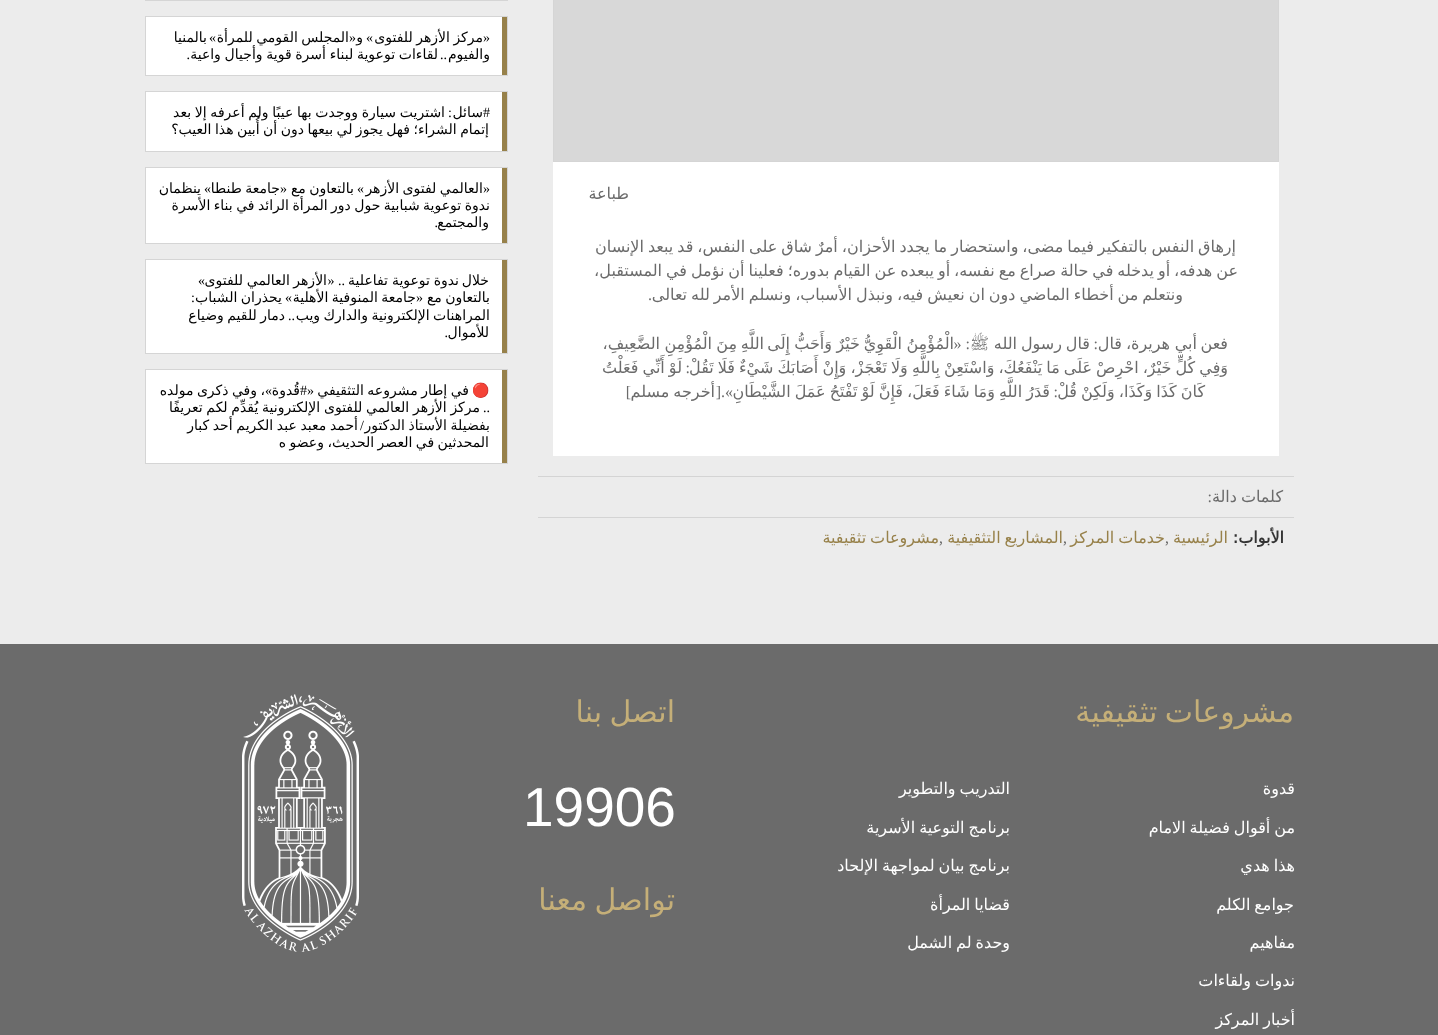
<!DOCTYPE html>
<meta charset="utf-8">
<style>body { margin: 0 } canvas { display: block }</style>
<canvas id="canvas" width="1438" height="1035"></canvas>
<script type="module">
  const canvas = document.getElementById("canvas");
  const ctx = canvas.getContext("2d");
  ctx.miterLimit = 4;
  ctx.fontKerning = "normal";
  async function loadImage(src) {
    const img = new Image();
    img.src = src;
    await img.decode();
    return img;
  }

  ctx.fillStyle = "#ececec";
  ctx.fillRect(0, 0, 1438, 1035);
  ctx.fillStyle = "#ffffff";
  ctx.fillRect(553, 162, 726, 294);
  ctx.strokeStyle = "#d5d5d5";
  ctx.strokeRect(553.5, -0.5, 725, 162);
  ctx.fillStyle = "#d8d8d8";
  ctx.fillRect(554, 0, 724, 161);
  ctx.direction = "rtl";
  ctx.font = "16px DejaVu Sans";
  ctx.fillStyle = "#6b6b6b";
  ctx.fillText("طباعة", 629, 199);
  ctx.wordSpacing = "-1.1px";
  ctx.fillText("إرهاق النفس بالتفكير فيما مضى، واستحضار ما يجدد الأحزان، أمرٌ شاق على النفس، قد يبعد الإنسان", 1236, 252);
  ctx.fillText("عن هدفه، أو يدخله في حالة صراع مع نفسه، أو يبعده عن القيام بدوره؛ فعلينا أن نؤمل في المستقبل،", 1238, 276);
  ctx.fillText("ونتعلم من أخطاء الماضي دون ان نعيش فيه، ونبذل الأسباب، ونسلم الأمر لله تعالى", 1183, 300);
  ctx.wordSpacing = "0px";
  ctx.font = "16px Liberation Serif";
  ctx.fillText(".", 652, 300);
  ctx.font = "16px DejaVu Sans";
  ctx.fillText("فعن", 1228, 349);
  ctx.fillText("أبي", 1197, 349);
  ctx.fillText("هريرة،", 1170, 349);
  ctx.fillText("قال", 1122, 349);
  ctx.font = "16px Liberation Serif";
  ctx.fillText(":", 1098, 349);
  ctx.font = "16px DejaVu Sans";
  ctx.fillText("قال", 1090, 349);
  ctx.fillText("رسول", 1062, 349);
  ctx.fillText("الله", 1017, 349);
  ctx.font = "16px Lateef";
  ctx.fillText("ﷺ", 989, 349);
  ctx.font = "16px Liberation Serif";
  ctx.fillText(": «", 970, 349);
  ctx.font = "16px DejaVu Sans";
  ctx.fillText("الْمُؤْمِنُ", 954, 349);
  ctx.fillText("الْقَوِيُّ", 902, 349);
  ctx.fillText("خَيْرٌ", 860, 349);
  ctx.fillText("وَأَحَبُّ", 832, 349);
  ctx.fillText("إِلَى", 790, 349);
  ctx.fillText("اللَّهِ", 764, 349);
  ctx.fillText("مِنَ", 737, 349);
  ctx.fillText("الْمُؤْمِنِ", 712, 349);
  ctx.fillText("الضَّعِيفِ،", 660, 349);
  ctx.wordSpacing = "-1px";
  ctx.fillText("وَفِي كُلٍّ خَيْرٌ، احْرِصْ عَلَى مَا يَنْفَعُكَ، وَاسْتَعِنْ بِاللَّهِ وَلَا تَعْجَزْ، وَإِنْ أَصَابَكَ شَيْءٌ فَلَا تَقُلْ", 1228, 373);
  ctx.wordSpacing = "0px";
  ctx.font = "16px Liberation Serif";
  ctx.fillText(":", 690, 373);
  ctx.wordSpacing = "-1px";
  ctx.font = "16px DejaVu Sans";
  ctx.fillText("لَوْ أَنِّي فَعَلْتُ", 682, 373);
  ctx.fillText("كَانَ كَذَا وَكَذَا، وَلَكِنْ قُلْ", 1205, 397);
  ctx.wordSpacing = "0px";
  ctx.font = "16px Liberation Serif";
  ctx.fillText(":", 1058, 397);
  ctx.wordSpacing = "-1px";
  ctx.font = "16px DejaVu Sans";
  ctx.fillText("قَدَرُ اللَّهِ وَمَا شَاءَ فَعَلَ، فَإِنَّ لَوْ تَفْتَحُ عَمَلَ الشَّيْطَانِ", 1050, 397);
  ctx.wordSpacing = "0px";
  ctx.font = "16px Liberation Serif";
  ctx.fillText("».[", 733, 397);
  ctx.wordSpacing = "-1px";
  ctx.font = "16px DejaVu Sans";
  ctx.fillText("أخرجه مسلم", 715, 397);
  ctx.wordSpacing = "0px";
  ctx.font = "16px Liberation Serif";
  ctx.fillText("]", 631, 397);
  ctx.fillStyle = "#d4d4d4";
  ctx.fillRect(538, 476, 756, 1);
  ctx.wordSpacing = "-1.1px";
  ctx.font = "16px DejaVu Sans";
  ctx.fillStyle = "#6b6b6b";
  ctx.fillText("كلمات دالة", 1283, 502);
  ctx.wordSpacing = "0px";
  ctx.font = "16px Liberation Serif";
  ctx.fillText(":", 1212, 502);
  ctx.fillStyle = "#d4d4d4";
  ctx.fillRect(538, 517, 756, 1);
  ctx.font = "bold 16px DejaVu Sans";
  ctx.fillStyle = "#333333";
  ctx.fillText("الأبواب:", 1284, 543);
  ctx.font = "16px DejaVu Sans";
  ctx.fillStyle = "#97814a";
  ctx.fillText("الرئيسية", 1228, 543);
  ctx.direction = "ltr";
  ctx.font = "16px Liberation Serif";
  ctx.fillStyle = "#6b6b6b";
  ctx.fillText(",", 1165, 543);
  ctx.wordSpacing = "-1.1px";
  ctx.direction = "rtl";
  ctx.font = "16px DejaVu Sans";
  ctx.fillStyle = "#97814a";
  ctx.fillText("خدمات المركز", 1165, 543);
  ctx.wordSpacing = "0px";
  ctx.direction = "ltr";
  ctx.font = "16px Liberation Serif";
  ctx.fillStyle = "#6b6b6b";
  ctx.fillText(",", 1063, 543);
  ctx.wordSpacing = "-1.1px";
  ctx.direction = "rtl";
  ctx.font = "16px DejaVu Sans";
  ctx.fillStyle = "#97814a";
  ctx.fillText("المشاريع التثقيفية", 1063, 543);
  ctx.wordSpacing = "0px";
  ctx.direction = "ltr";
  ctx.font = "16px Liberation Serif";
  ctx.fillStyle = "#6b6b6b";
  ctx.fillText(",", 939, 543);
  ctx.wordSpacing = "-1.1px";
  ctx.direction = "rtl";
  ctx.font = "16px DejaVu Sans";
  ctx.fillStyle = "#97814a";
  ctx.fillText("مشروعات تثقيفية", 939, 543);
  ctx.strokeRect(145.5, -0.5, 362, 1);
  ctx.fillStyle = "#ffffff";
  ctx.fillRect(146, 17, 356, 58);
  ctx.strokeRect(145.5, 16.5, 362, 59);
  ctx.fillStyle = "#97814a";
  ctx.fillRect(502, 17, 5, 58);
  ctx.wordSpacing = "0px";
  ctx.font = "14px Liberation Serif";
  ctx.fillStyle = "#000000";
  ctx.fillText("«", 490, 42);
  ctx.wordSpacing = "-1px";
  ctx.font = "14px DejaVu Sans";
  ctx.fillText("مركز الأزهر للفتوى", 483, 42);
  ctx.wordSpacing = "0px";
  ctx.font = "14px Liberation Serif";
  ctx.fillText("»", 373, 42);
  ctx.fillText("«", 356, 42);
  ctx.font = "14px DejaVu Sans";
  ctx.fillText("و", 363, 42);
  ctx.wordSpacing = "-1px";
  ctx.fillText("المجلس القومي للمرأة", 349, 42);
  ctx.wordSpacing = "0px";
  ctx.font = "14px Liberation Serif";
  ctx.fillText("»", 216, 42);
  ctx.font = "14px DejaVu Sans";
  ctx.fillText("بالمنيا", 207, 42);
  ctx.fillText("والفيوم", 490, 59);
  ctx.font = "14px Liberation Serif";
  ctx.fillText("..", 447, 59);
  ctx.wordSpacing = "-0.75px";
  ctx.font = "14px DejaVu Sans";
  ctx.fillText("لقاءات توعوية لبناء أسرة قوية وأجيال واعية", 438, 59);
  ctx.wordSpacing = "0px";
  ctx.font = "14px Liberation Serif";
  ctx.fillText(".", 190, 59);
  ctx.fillStyle = "#ffffff";
  ctx.fillRect(146, 92, 356, 59);
  ctx.strokeRect(145.5, 91.5, 362, 60);
  ctx.fillStyle = "#97814a";
  ctx.fillRect(502, 92, 5, 59);
  ctx.fillStyle = "#000000";
  ctx.fillText("#", 490, 117);
  ctx.font = "14px DejaVu Sans";
  ctx.fillText("سائل", 483, 117);
  ctx.font = "14px Liberation Serif";
  ctx.fillText(":", 452, 117);
  ctx.wordSpacing = "-0.75px";
  ctx.font = "14px DejaVu Sans";
  ctx.fillText("اشتريت سيارة ووجدت بها عيبًا ولم أعرفه إلا بعد", 445, 117);
  ctx.wordSpacing = "-1px";
  ctx.fillText("إتمام الشراء؛ فهل يجوز لي بيعها دون أن أُبين هذا العيب؟", 489, 134);
  ctx.fillStyle = "#ffffff";
  ctx.fillRect(146, 168, 356, 75);
  ctx.strokeRect(145.5, 167.5, 362, 76);
  ctx.fillStyle = "#97814a";
  ctx.fillRect(502, 168, 5, 75);
  ctx.wordSpacing = "0px";
  ctx.font = "14px Liberation Serif";
  ctx.fillStyle = "#000000";
  ctx.fillText("«", 490, 193);
  ctx.fillText("»", 364, 193);
  ctx.wordSpacing = "-1px";
  ctx.font = "14px DejaVu Sans";
  ctx.fillText("العالمي لفتوى الأزهر", 483, 193);
  ctx.fillText("بالتعاون مع", 354, 193);
  ctx.wordSpacing = "0px";
  ctx.font = "14px Liberation Serif";
  ctx.fillText("«", 287, 193);
  ctx.wordSpacing = "-1px";
  ctx.font = "14px DejaVu Sans";
  ctx.fillText("جامعة طنطا", 280, 193);
  ctx.wordSpacing = "0px";
  ctx.font = "14px Liberation Serif";
  ctx.fillText("»", 211, 193);
  ctx.font = "14px DejaVu Sans";
  ctx.fillText("ينظمان", 201, 193);
  ctx.wordSpacing = "-1px";
  ctx.fillText("ندوة توعوية شبابية حول دور المرأة الرائد في بناء الأسرة", 490, 210);
  ctx.wordSpacing = "0px";
  ctx.fillText("والمجتمع", 489, 227);
  ctx.font = "14px Liberation Serif";
  ctx.fillText(".", 438, 227);
  ctx.fillStyle = "#ffffff";
  ctx.fillRect(146, 260, 356, 93);
  ctx.strokeRect(145.5, 259.5, 362, 94);
  ctx.fillStyle = "#97814a";
  ctx.fillRect(502, 260, 5, 93);
  ctx.font = "14px DejaVu Sans";
  ctx.fillStyle = "#000000";
  ctx.fillText("خلال", 489, 285);
  ctx.fillText("ندوة", 459, 285);
  ctx.fillText("توعوية", 430, 285);
  ctx.fillText("تفاعلية", 388, 285);
  ctx.font = "14px Liberation Serif";
  ctx.fillText(".. «", 345, 285);
  ctx.font = "14px DejaVu Sans";
  ctx.fillText("الأزهر", 327, 285);
  ctx.fillText("العالمي", 290, 285);
  ctx.fillText("للفتوى", 243, 285);
  ctx.font = "14px Liberation Serif";
  ctx.fillText("»", 205, 285);
  ctx.wordSpacing = "-1px";
  ctx.font = "14px DejaVu Sans";
  ctx.fillText("بالتعاون مع", 490, 302);
  ctx.wordSpacing = "0px";
  ctx.font = "14px Liberation Serif";
  ctx.fillText("«", 423, 302);
  ctx.wordSpacing = "-1px";
  ctx.font = "14px DejaVu Sans";
  ctx.fillText("جامعة المنوفية الأهلية", 416, 302);
  ctx.wordSpacing = "0px";
  ctx.font = "14px Liberation Serif";
  ctx.fillText("»", 292, 302);
  ctx.wordSpacing = "-1px";
  ctx.font = "14px DejaVu Sans";
  ctx.fillText("يحذران الشباب", 282, 302);
  ctx.wordSpacing = "0px";
  ctx.font = "14px Liberation Serif";
  ctx.fillText(":", 195, 302);
  ctx.wordSpacing = "-1px";
  ctx.font = "14px DejaVu Sans";
  ctx.fillText("المراهنات الإلكترونية والدارك ويب", 490, 320);
  ctx.wordSpacing = "0px";
  ctx.font = "14px Liberation Serif";
  ctx.fillText("..", 295, 320);
  ctx.wordSpacing = "-1px";
  ctx.font = "14px DejaVu Sans";
  ctx.fillText("دمار للقيم وضياع", 285, 320);
  ctx.wordSpacing = "0px";
  ctx.fillText("للأموال", 489, 337);
  ctx.font = "14px Liberation Serif";
  ctx.fillText(".", 448, 337);
  ctx.fillStyle = "#ffffff";
  ctx.fillRect(146, 370, 356, 93);
  ctx.strokeRect(145.5, 369.5, 362, 94);
  ctx.fillStyle = "#97814a";
  ctx.fillRect(502, 370, 5, 93);
  ctx.font = "14px Noto Color Emoji";
  ctx.fillStyle = "#000000";
  ctx.fillText("🔴", 490, 395);
  ctx.wordSpacing = "-1px";
  ctx.font = "14px DejaVu Sans";
  ctx.fillText("في إطار مشروعه التثقيفي", 469, 395);
  ctx.wordSpacing = "0px";
  ctx.font = "14px Liberation Serif";
  ctx.fillText("«#", 314, 395);
  ctx.font = "14px DejaVu Sans";
  ctx.fillText("قُدوة", 300, 395);
  ctx.font = "14px Liberation Serif";
  ctx.fillText("»", 272, 395);
  ctx.wordSpacing = "-1px";
  ctx.font = "14px DejaVu Sans";
  ctx.fillText("، وفي ذكرى مولده", 265, 395);
  ctx.wordSpacing = "0px";
  ctx.font = "14px Liberation Serif";
  ctx.fillText("..", 490, 412);
  ctx.wordSpacing = "-0.75px";
  ctx.font = "14px DejaVu Sans";
  ctx.fillText("مركز الأزهر العالمي للفتوى الإلكترونية يُقدِّم لكم تعريفًا", 480, 412);
  ctx.wordSpacing = "0px";
  ctx.font = "14px Liberation Serif";
  ctx.fillText("/", 364, 430);
  ctx.wordSpacing = "-0.75px";
  ctx.font = "14px DejaVu Sans";
  ctx.fillText("بفضيلة الأستاذ الدكتور", 490, 430);
  ctx.fillText("أحمد معبد عبد الكريم أحد كبار", 358, 430);
  ctx.wordSpacing = "-1px";
  ctx.fillText("المحدثين في العصر الحديث، وعضو ه", 489, 447);
  ctx.fillStyle = "#6b6b6b";
  ctx.fillRect(0, 644, 1438, 391);
  ctx.wordSpacing = "-2px";
  ctx.font = "30px DejaVu Sans";
  ctx.fillStyle = "#c5af78";
  ctx.fillText("مشروعات تثقيفية", 1294, 722);
  ctx.wordSpacing = "0px";
  ctx.font = "16px DejaVu Sans";
  ctx.fillStyle = "#ffffff";
  ctx.fillText("قدوة", 1295, 794);
  ctx.wordSpacing = "-1.1px";
  ctx.fillText("من أقوال فضيلة الامام", 1295, 833);
  ctx.fillText("هذا هدي", 1295, 871);
  ctx.fillText("جوامع الكلم", 1294, 910);
  ctx.wordSpacing = "0px";
  ctx.fillText("مفاهيم", 1295, 948);
  ctx.wordSpacing = "-1.1px";
  ctx.fillText("التدريب والتطوير", 1010, 794);
  ctx.fillText("برنامج التوعية الأسرية", 1010, 833);
  ctx.fillText("برنامج بيان لمواجهة الإلحاد", 1010, 871);
  ctx.fillText("قضايا المرأة", 1010, 910);
  ctx.fillText("وحدة لم الشمل", 1010, 948);
  ctx.fillText("ندوات ولقاءات", 1295, 986);
  ctx.fillText("أخبار المركز", 1295, 1025);
  ctx.wordSpacing = "-2px";
  ctx.font = "30px DejaVu Sans";
  ctx.fillStyle = "#c5af78";
  ctx.fillText("اتصل بنا", 675, 722);
  ctx.wordSpacing = "0px";
  ctx.direction = "ltr";
  ctx.font = "55px Liberation Sans";
  ctx.fillStyle = "#ffffff";
  ctx.fillText("19906", 523, 826);
  ctx.wordSpacing = "-2px";
  ctx.direction = "rtl";
  ctx.font = "30px DejaVu Sans";
  ctx.fillStyle = "#c5af78";
  ctx.fillText("تواصل معنا", 675, 910);
  ctx.drawImage(await loadImage("img1.png"), 242, 694, 117, 258);
</script>
